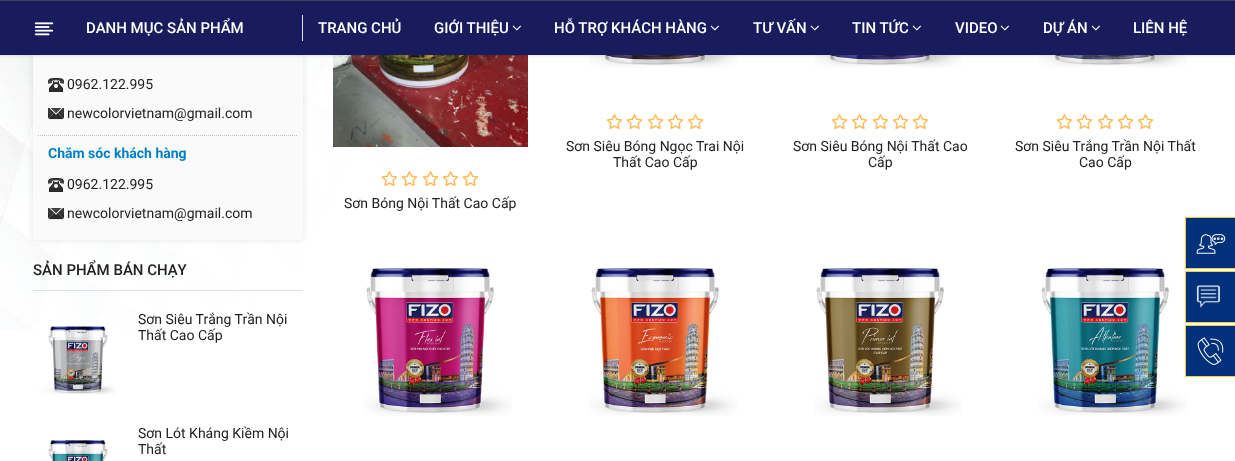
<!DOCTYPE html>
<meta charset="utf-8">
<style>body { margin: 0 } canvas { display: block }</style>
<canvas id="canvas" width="1235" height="461"></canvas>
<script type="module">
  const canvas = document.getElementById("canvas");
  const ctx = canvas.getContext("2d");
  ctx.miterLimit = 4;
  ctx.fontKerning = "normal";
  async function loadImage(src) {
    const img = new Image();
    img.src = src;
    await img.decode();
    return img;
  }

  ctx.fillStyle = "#ffffff";
  ctx.fillRect(0, 0, 1235, 461);
  ctx.drawImage(await loadImage("img1.png"), 0, 55, 417, 277);
  ctx.fillStyle = "rgba(0, 0, 0, 0.1)";
  ctx.filter = "blur(3px)";
  ctx.beginPath();
  ctx.rect(33, -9, 270, 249);
  ctx.fill();
  ctx.filter = "none";
  ctx.fillStyle = "#fafafa";
  ctx.fillRect(33, 55, 270, 185);
  ctx.drawImage(await loadImage("img8.png"), 589, 55, 148, 13);
  ctx.drawImage(await loadImage("img10.png"), 814, 55, 148, 13);
  ctx.drawImage(await loadImage("img11.png"), 1039, 55, 148, 13);
  ctx.drawImage(await loadImage("img12.png"), 333, 55, 195, 92);
  ctx.fillStyle = "rgba(0, 0, 0, 0.11)";
  ctx.filter = "blur(1.5px)";
  ctx.beginPath();
  ctx.rect(0, 1, 1235, 55);
  ctx.fill();
  ctx.filter = "none";
  ctx.fillStyle = "#181c5d";
  ctx.fillRect(0, 1, 1235, 54);
  ctx.fillStyle = "#3e4356";
  ctx.fillRect(0, 0, 1235, 1);
  ctx.fillStyle = "#e1e1e1";
  ctx.fillRect(302, 15, 1, 26);
  ctx.drawImage(await loadImage("img2.png"), 34, 22, 20, 14);
  ctx.font = "500 15px Roboto";
  ctx.fillStyle = "#ffffff";
  ctx.fillText("DANH MỤC SẢN PHẨM", 86, 33);
  ctx.fillText("TRANG CHỦ", 318, 33);
  ctx.fillText("GIỚI THIỆU", 434, 33);
  ctx.drawImage(await loadImage("img3.png"), 512, 25, 9, 6);
  ctx.fillText("HỖ TRỢ KHÁCH HÀNG", 554, 33);
  ctx.drawImage(await loadImage("img3.png"), 710, 25, 9, 6);
  ctx.fillText("TƯ VẤN", 753, 33);
  ctx.drawImage(await loadImage("img3.png"), 810, 25, 9, 6);
  ctx.fillText("TIN TỨC", 852, 33);
  ctx.drawImage(await loadImage("img3.png"), 912, 25, 9, 6);
  ctx.fillText("VIDEO", 955, 33);
  ctx.drawImage(await loadImage("img3.png"), 1000, 25, 9, 6);
  ctx.fillText("DỰ ÁN", 1043, 33);
  ctx.drawImage(await loadImage("img3.png"), 1091, 25, 9, 6);
  ctx.fillText("LIÊN HỆ", 1133, 33);
  ctx.beginPath();
  ctx.moveTo(38, 135.5);
  ctx.lineTo(298, 135.5);
  ctx.strokeStyle = "#c0c0c0";
  ctx.setLineDash([1, 1]);
  ctx.stroke();
  ctx.drawImage(await loadImage("img4.png"), 48, 78, 16, 14);
  ctx.font = "14px Roboto";
  ctx.fillStyle = "#222222";
  ctx.fillText("0962.122.995", 67, 89);
  ctx.drawImage(await loadImage("img5.png"), 48, 108, 16, 12);
  ctx.fillText("newcolorvietnam@gmail.com", 67, 118);
  ctx.font = "bold 14px Roboto";
  ctx.fillStyle = "#0080c7";
  ctx.fillText("Chăm sóc khách hàng", 48, 158);
  ctx.drawImage(await loadImage("img4.png"), 48, 178, 16, 14);
  ctx.font = "14px Roboto";
  ctx.fillStyle = "#222222";
  ctx.fillText("0962.122.995", 67, 189);
  ctx.drawImage(await loadImage("img5.png"), 48, 208, 16, 12);
  ctx.fillText("newcolorvietnam@gmail.com", 67, 218);
  ctx.fillStyle = "#e1e1e1";
  ctx.fillRect(33, 290, 270, 1);
  ctx.font = "500 15px Roboto";
  ctx.fillStyle = "#222222";
  ctx.fillText("SẢN PHẨM BÁN CHẠY", 33, 275);
  ctx.drawImage(await loadImage("img6.png"), 33, 326, 83, 69);
  ctx.font = "14px Roboto";
  ctx.fillText("Sơn Siêu Trắng Trần Nội", 138, 324);
  ctx.fillText("Thất Cao Cấp", 138, 340);
  ctx.drawImage(await loadImage("img7.png"), 48, 440, 60, 21);
  ctx.fillText("Sơn Lót Kháng Kiềm Nội", 138, 438);
  ctx.fillText("Thất", 138, 454);
  ctx.drawImage(await loadImage("img9.png"), 606, 114, 17, 15);
  ctx.drawImage(await loadImage("img9.png"), 626, 114, 17, 15);
  ctx.drawImage(await loadImage("img9.png"), 647, 114, 17, 15);
  ctx.drawImage(await loadImage("img9.png"), 667, 114, 17, 15);
  ctx.drawImage(await loadImage("img9.png"), 687, 114, 17, 15);
  ctx.fillText("Sơn Siêu Bóng Ngọc Trai Nội", 566, 151);
  ctx.fillText("Thất Cao Cấp", 613, 167);
  ctx.drawImage(await loadImage("img9.png"), 831, 114, 17, 15);
  ctx.drawImage(await loadImage("img9.png"), 851, 114, 17, 15);
  ctx.drawImage(await loadImage("img9.png"), 872, 114, 17, 15);
  ctx.drawImage(await loadImage("img9.png"), 892, 114, 17, 15);
  ctx.drawImage(await loadImage("img9.png"), 912, 114, 17, 15);
  ctx.fillText("Sơn Siêu Bóng Nội Thất Cao", 793, 151);
  ctx.fillText("Cấp", 868, 167);
  ctx.drawImage(await loadImage("img9.png"), 1056, 114, 17, 15);
  ctx.drawImage(await loadImage("img9.png"), 1076, 114, 17, 15);
  ctx.drawImage(await loadImage("img9.png"), 1097, 114, 17, 15);
  ctx.drawImage(await loadImage("img9.png"), 1117, 114, 17, 15);
  ctx.drawImage(await loadImage("img9.png"), 1137, 114, 17, 15);
  ctx.fillText("Sơn Siêu Trắng Trần Nội Thất", 1015, 151);
  ctx.fillText("Cao Cấp", 1079, 167);
  ctx.drawImage(await loadImage("img13.png"), 381, 171, 17, 15);
  ctx.drawImage(await loadImage("img14.png"), 401, 171, 17, 15);
  ctx.drawImage(await loadImage("img9.png"), 422, 171, 17, 15);
  ctx.drawImage(await loadImage("img9.png"), 442, 171, 17, 15);
  ctx.drawImage(await loadImage("img9.png"), 462, 171, 17, 15);
  ctx.fillText("Sơn Bóng Nội Thất Cao Cấp", 344, 208);
  ctx.drawImage(await loadImage("img15.png"), 364, 268, 148, 148);
  ctx.drawImage(await loadImage("img16.png"), 589, 268, 148, 148);
  ctx.drawImage(await loadImage("img17.png"), 814, 268, 148, 148);
  ctx.drawImage(await loadImage("img18.png"), 1039, 268, 148, 148);
  ctx.fillStyle = "#00317a";
  ctx.beginPath();
  ctx.rect(1185.5, 217.5, 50, 51);
  ctx.fill();
  ctx.strokeStyle = "#ffcc33";
  ctx.setLineDash([]);
  ctx.stroke();
  ctx.drawImage(await loadImage("img19.png"), 1196, 234, 30, 20);
  ctx.beginPath();
  ctx.rect(1185.5, 271.5, 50, 51);
  ctx.fill();
  ctx.stroke();
  ctx.drawImage(await loadImage("img20.png"), 1196, 285, 24, 23);
  ctx.beginPath();
  ctx.rect(1185.5, 325.5, 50, 51);
  ctx.fill();
  ctx.stroke();
  ctx.drawImage(await loadImage("img21.png"), 1197, 337, 27, 28);
</script>
